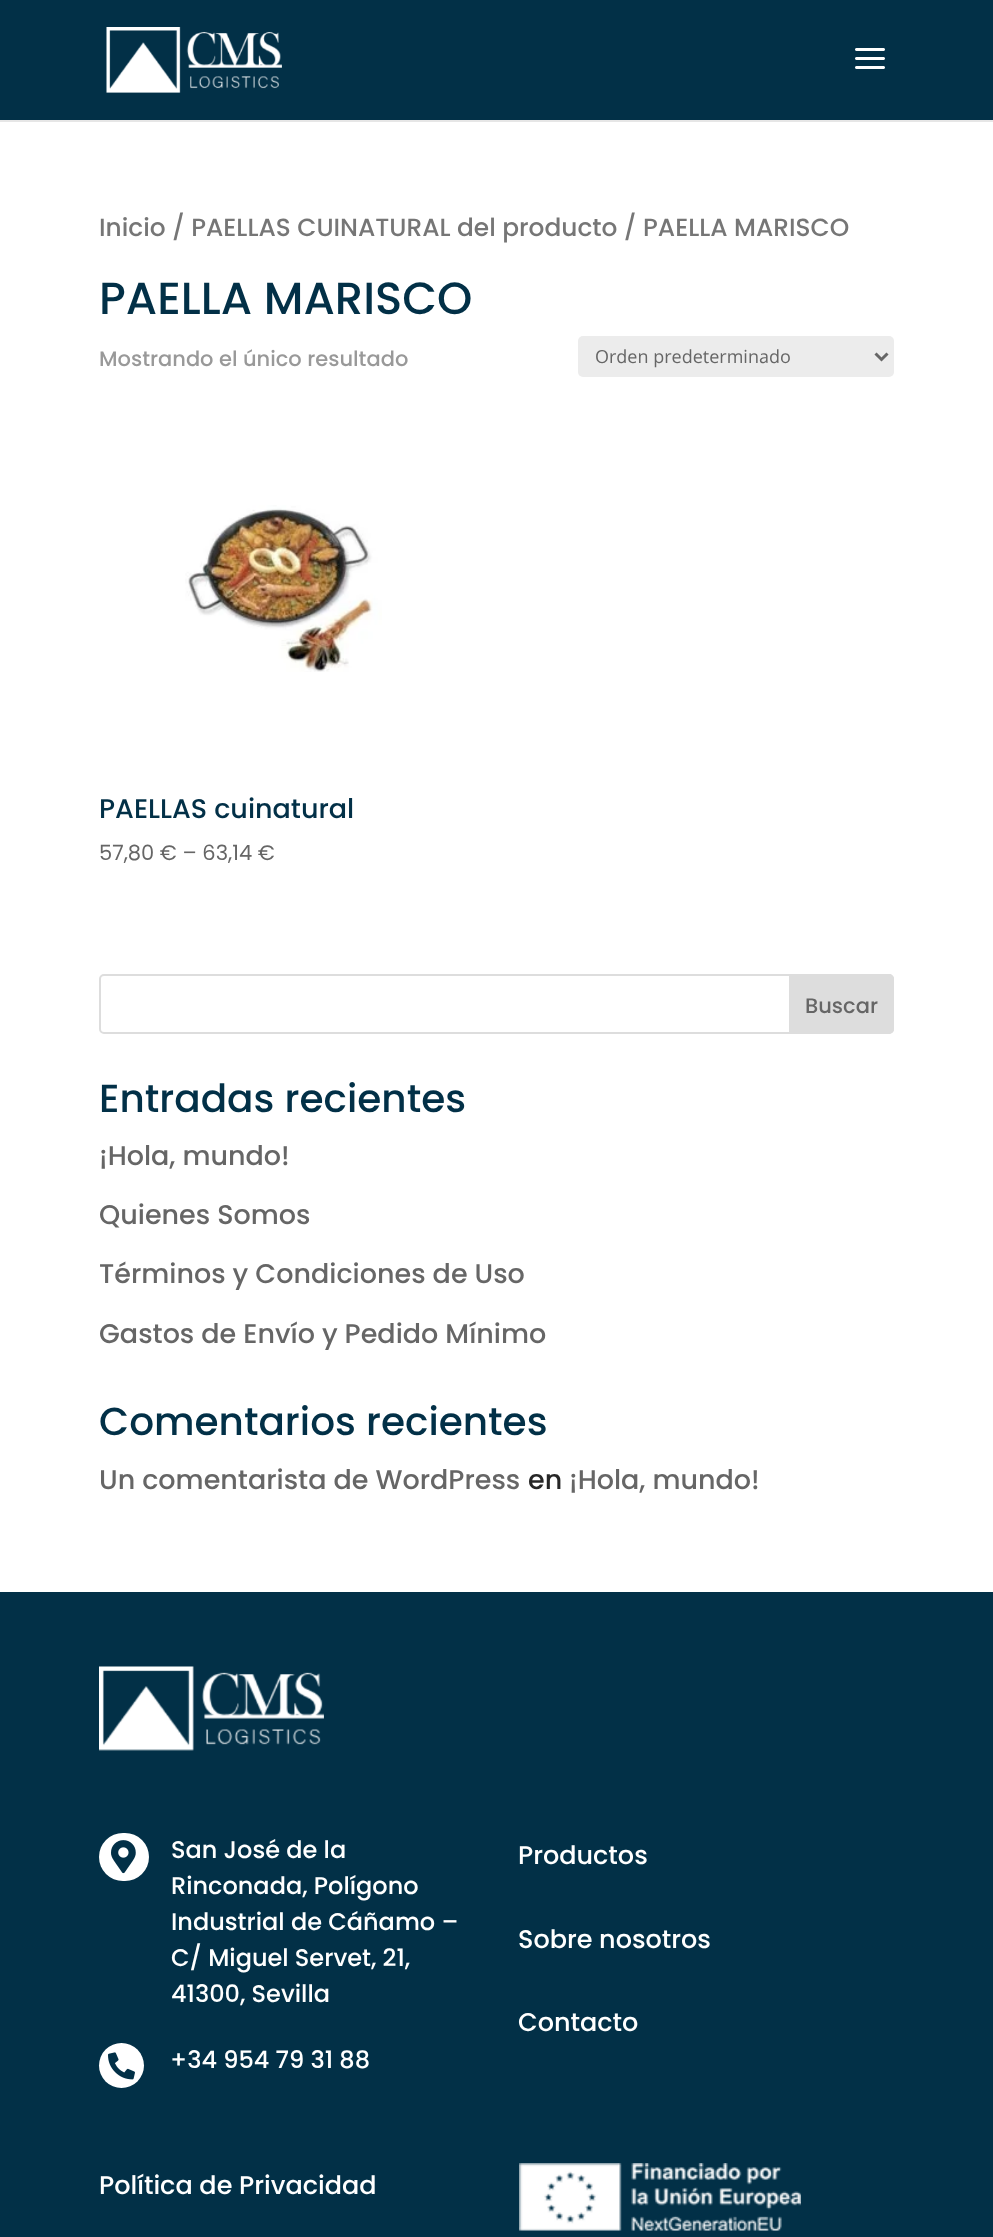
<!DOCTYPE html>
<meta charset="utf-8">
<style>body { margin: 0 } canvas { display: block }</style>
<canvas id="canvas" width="993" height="2237"></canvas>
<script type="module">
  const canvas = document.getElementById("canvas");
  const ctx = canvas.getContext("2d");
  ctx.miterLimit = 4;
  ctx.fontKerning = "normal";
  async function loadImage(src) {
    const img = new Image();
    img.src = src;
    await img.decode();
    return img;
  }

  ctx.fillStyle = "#ffffff";
  ctx.fillRect(0, 0, 993, 2237);
  ctx.fillStyle = "#e6e6e6";
  ctx.fillRect(0, 120, 993, 2);
  ctx.fillStyle = "#023047";
  ctx.fillRect(0, 0, 993, 120);
  ctx.drawImage(await loadImage("img1.png"), 106, 27, 176, 66);
  ctx.drawImage(await loadImage("img2.png"), 855, 48, 30, 21);
  ctx.font = "500 24.85px Poppins";
  ctx.fillStyle = "#767676";
  ctx.fillText("Inicio / PAELLAS CUINATURAL del producto / PAELLA MARISCO", 99, 236);
  ctx.font = "500 45px Poppins";
  ctx.fillStyle = "#023047";
  ctx.fillText("PAELLA MARISCO", 99, 314);
  ctx.font = "500 21px Poppins";
  ctx.fillStyle = "#999999";
  ctx.fillText("Mostrando el único resultado", 99, 366);
  ctx.fillStyle = "#ececec";
  ctx.beginPath();
  ctx.roundRect(578, 336, 316, 41, 5);
  ctx.fill();
  ctx.beginPath();
  ctx.moveTo(875.5, 353.5);
  ctx.lineTo(881.5, 359.5);
  ctx.lineTo(887.5, 353.5);
  ctx.strokeStyle = "#666666";
  ctx.lineWidth = 3;
  ctx.stroke();
  ctx.font = "18px Open Sans";
  ctx.fillStyle = "#666666";
  ctx.fillText("Orden predeterminado", 595, 363);
  ctx.drawImage(await loadImage("img3.png"), 185, 505, 197, 167);
  ctx.font = "500 27px Poppins";
  ctx.fillStyle = "#023047";
  ctx.fillText("PAELLAS cuinatural", 99, 818);
  ctx.font = "21px Poppins";
  ctx.fillStyle = "#666666";
  ctx.fillText("57,80 € – 63,14 €", 99, 860);
  ctx.beginPath();
  ctx.roundRect(100, 975, 793, 58, 4);
  ctx.strokeStyle = "#dddddd";
  ctx.lineWidth = 2;
  ctx.stroke();
  ctx.fillStyle = "#dddddd";
  ctx.beginPath();
  ctx.roundRect(790, 975, 103, 58, [0, 4, 4, 0]);
  ctx.fill();
  ctx.stroke();
  ctx.font = "500 21px Poppins";
  ctx.fillStyle = "#666666";
  ctx.fillText("Buscar", 805, 1013);
  ctx.font = "500 39px Poppins";
  ctx.fillStyle = "#023047";
  ctx.fillText("Entradas recientes", 99, 1112);
  ctx.font = "500 27px Poppins";
  ctx.fillStyle = "#666666";
  ctx.fillText("¡Hola, mundo!", 99, 1165);
  ctx.fillText("Quienes Somos", 99, 1224);
  ctx.fillText("Términos y Condiciones de Uso", 99, 1283);
  ctx.fillText("Gastos de Envío y Pedido Mínimo", 99, 1343);
  ctx.font = "500 39px Poppins";
  ctx.fillStyle = "#023047";
  ctx.fillText("Comentarios recientes", 99, 1435);
  ctx.font = "500 27px Poppins";
  ctx.fillStyle = "#666666";
  ctx.fillText("Un comentarista de WordPress", 99, 1489);
  ctx.fillStyle = "#262626";
  ctx.fillText("en", 528, 1489);
  ctx.fillStyle = "#666666";
  ctx.fillText("¡Hola, mundo!", 569, 1489);
  ctx.fillStyle = "#023047";
  ctx.fillRect(0, 1592, 993, 645);
  ctx.drawImage(await loadImage("img4.png"), 99, 1666, 225, 85);
  ctx.fillStyle = "#ffffff";
  ctx.beginPath();
  ctx.roundRect(99, 1833, 50, 48, 24);
  ctx.fill();
  ctx.drawImage(await loadImage("img5.png"), 111, 1840, 25, 34);
  ctx.font = "500 24px Poppins";
  ctx.fillText("San José de la", 171, 1858);
  ctx.fillText("Rinconada, Polígono", 171, 1894);
  ctx.fillText("Industrial de Cáñamo –", 171, 1930);
  ctx.fillText("C/ Miguel Servet, 21,", 171, 1966);
  ctx.fillText("41300, Sevilla", 171, 2002);
  ctx.beginPath();
  ctx.arc(121.5, 2065.5, 22.5, 0, Math.PI * 2);
  ctx.fill();
  ctx.drawImage(await loadImage("img6.png"), 108, 2052, 27, 28);
  ctx.fillText("+34 954 79 31 88", 170, 2068);
  ctx.font = "500 25.5px Poppins";
  ctx.fillText("Productos", 518, 1864);
  ctx.fillText("Sobre nosotros", 518, 1948);
  ctx.fillText("Contacto", 518, 2031);
  ctx.fillText("Política de Privacidad", 99, 2194);
  ctx.drawImage(await loadImage("img7.png"), 519, 2163, 282, 68);
</script>
